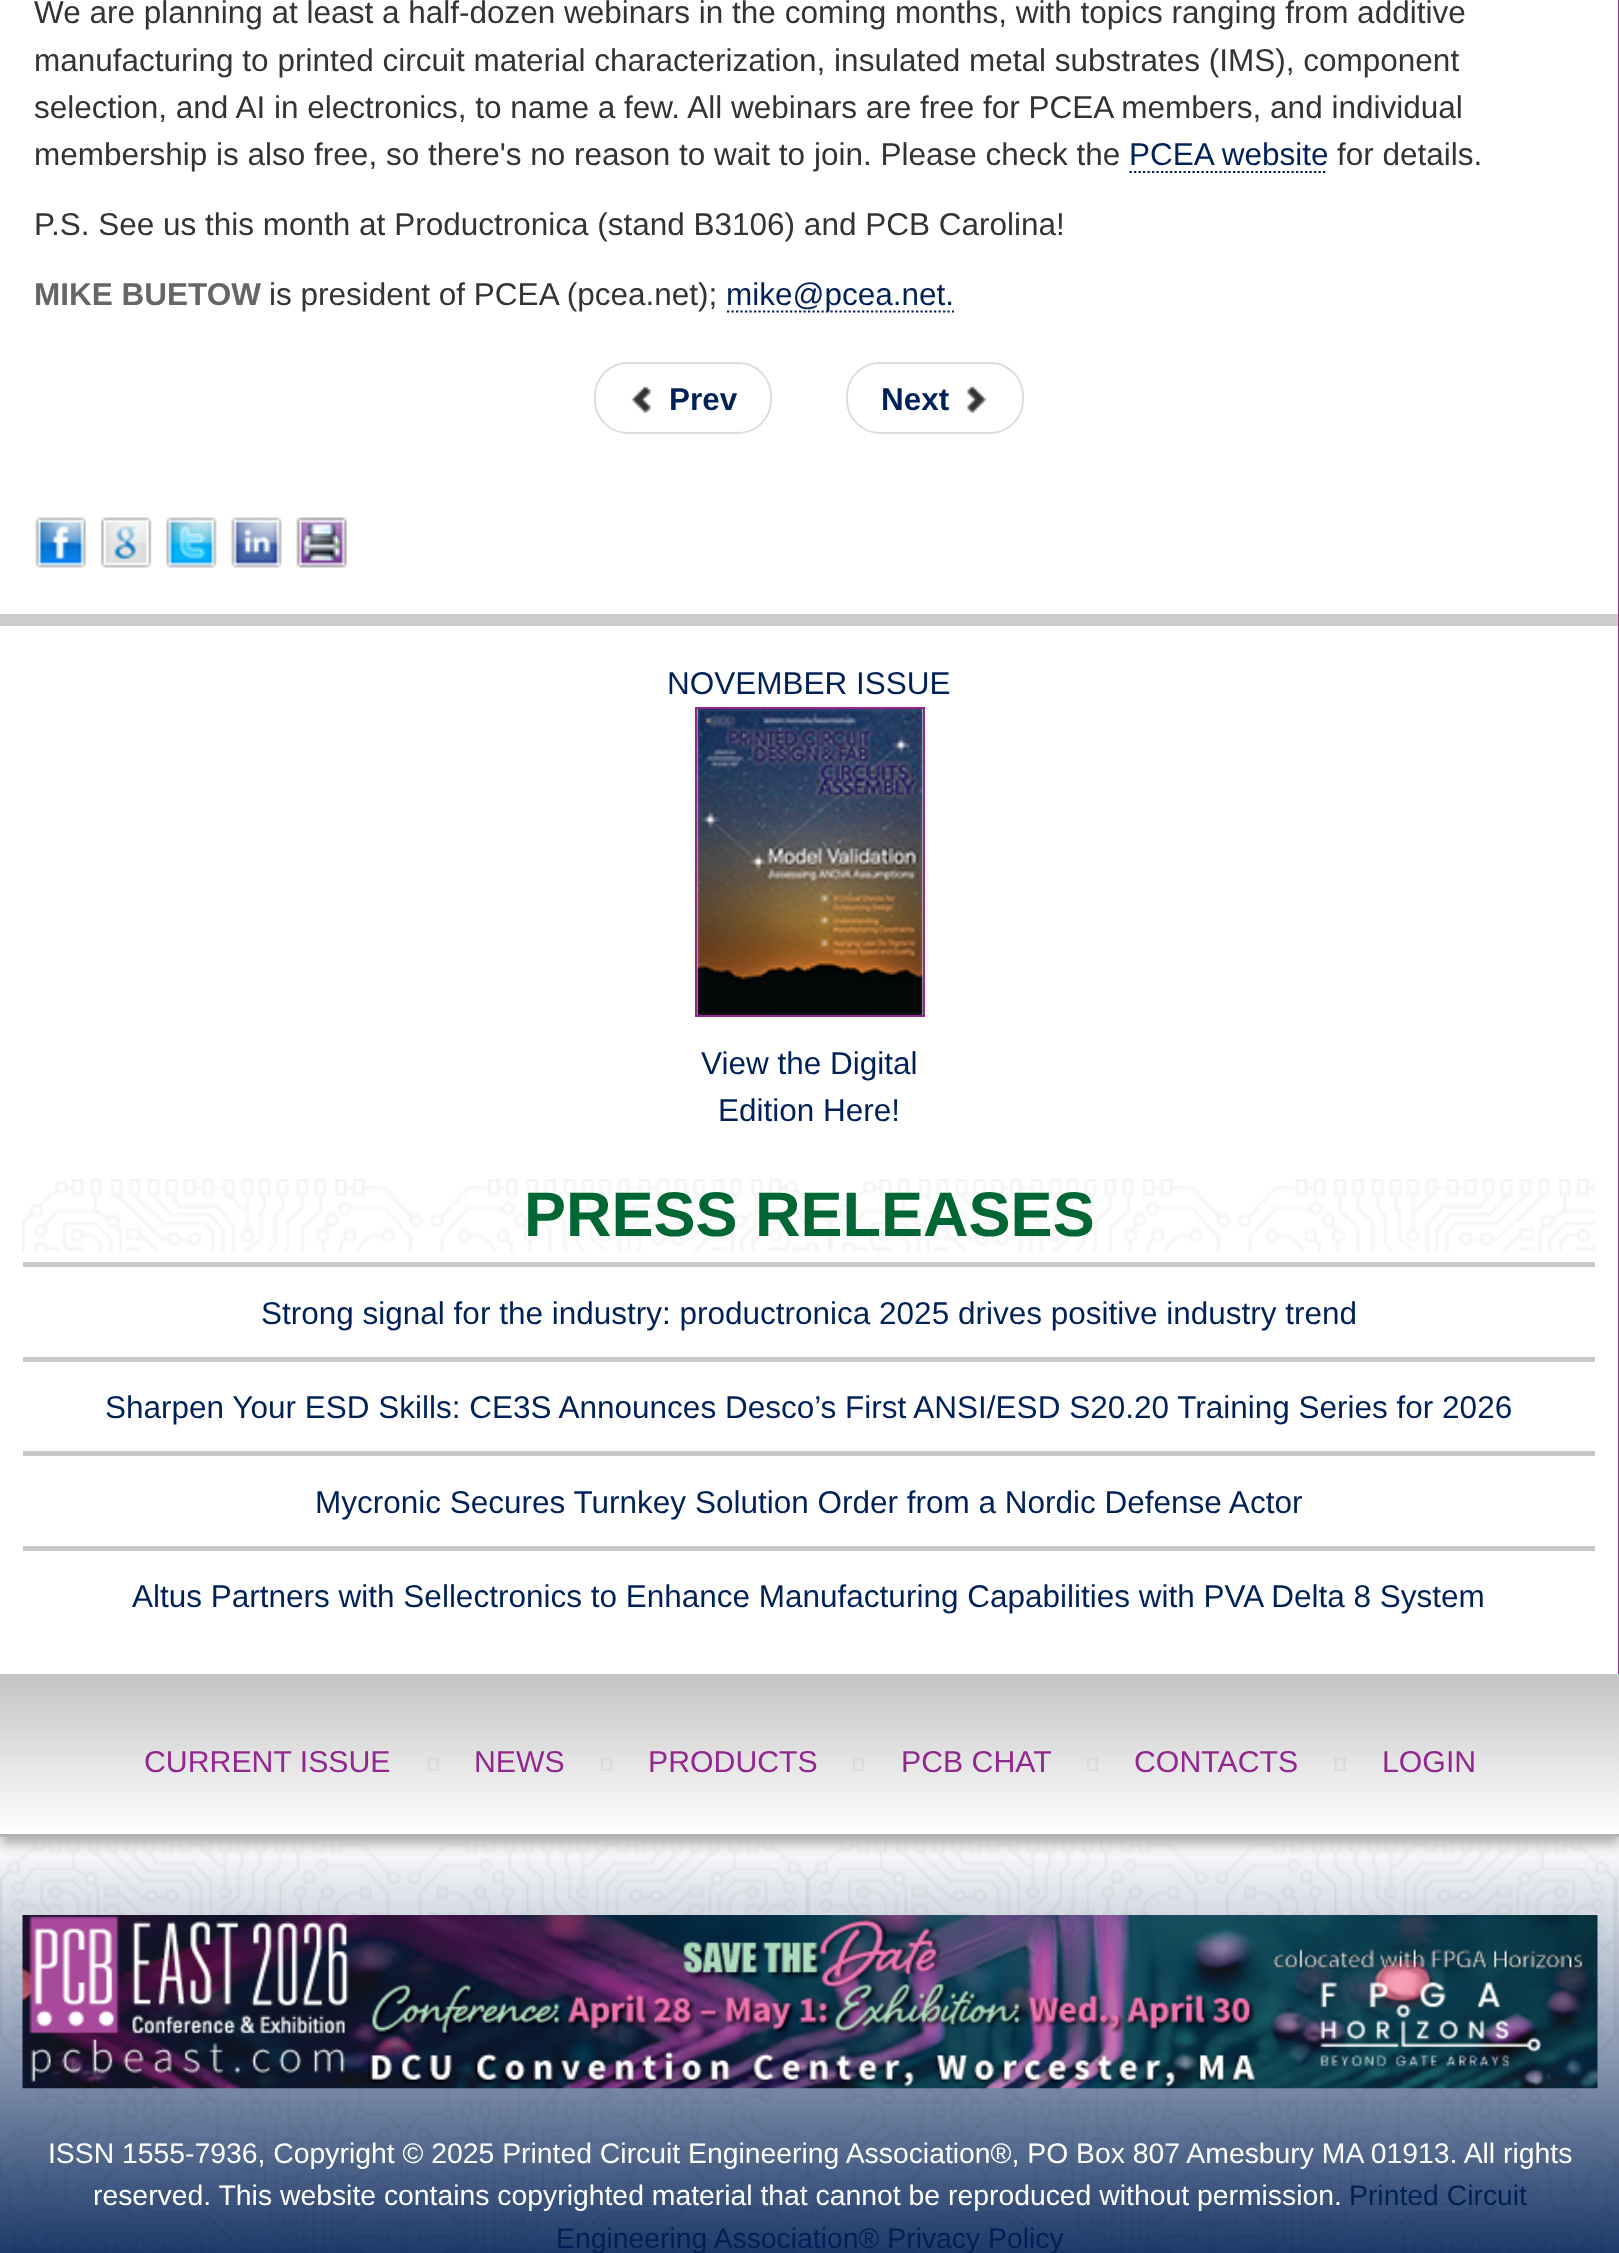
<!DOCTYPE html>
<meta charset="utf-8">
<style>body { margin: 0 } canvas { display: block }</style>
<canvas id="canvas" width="1619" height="2253"></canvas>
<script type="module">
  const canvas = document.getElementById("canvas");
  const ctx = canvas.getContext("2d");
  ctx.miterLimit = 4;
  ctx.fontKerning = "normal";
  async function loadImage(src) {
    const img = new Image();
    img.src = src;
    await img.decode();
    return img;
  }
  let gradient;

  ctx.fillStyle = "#ffffff";
  ctx.fillRect(0, 0, 1619, 2253);
  ctx.fillStyle = "#92278f";
  ctx.fillRect(1618, 0, 1, 1674);
  ctx.fillStyle = "#cccccc";
  ctx.fillRect(0, 614, 1618, 12);
  ctx.font = "31.5px Liberation Sans";
  ctx.fillStyle = "#333333";
  ctx.fillText("We are planning at least a half-dozen webinars in the coming months, with topics ranging from additive", 34, 23);
  ctx.fillText("manufacturing to printed circuit material characterization, insulated metal substrates (IMS), component", 34, 71);
  ctx.fillText("selection, and AI in electronics, to name a few. All webinars are free for PCEA members, and individual", 34, 118);
  ctx.fillText("membership is also free, so there's no reason to wait to join. Please check the", 34, 165);
  ctx.fillStyle = "#002157";
  ctx.fillText("PCEA website", 1129, 165);
  ctx.beginPath();
  ctx.moveTo(1129.5, 172);
  ctx.lineTo(1327.5, 172);
  ctx.strokeStyle = "#002157";
  ctx.lineWidth = 2.2;
  ctx.setLineDash([2.25, 2.25]);
  ctx.stroke();
  ctx.fillStyle = "#333333";
  ctx.fillText("for details.", 1337, 165);
  ctx.fillText("P.S. See us this month at Productronica (stand B3106) and PCB Carolina!", 34, 235);
  ctx.font = "bold 31.5px Liberation Sans";
  ctx.fillStyle = "#666666";
  ctx.fillText("MIKE BUETOW", 34, 305);
  ctx.font = "31.5px Liberation Sans";
  ctx.fillStyle = "#333333";
  ctx.fillText("is president of PCEA (pcea.net);", 269, 305);
  ctx.beginPath();
  ctx.moveTo(727, 311.5);
  ctx.lineTo(954, 311.5);
  ctx.stroke();
  ctx.fillStyle = "#002157";
  ctx.fillText("mike@pcea.net.", 726, 305);
  ctx.beginPath();
  ctx.roundRect(595, 363, 176, 70, 33);
  ctx.strokeStyle = "#dddddd";
  ctx.lineWidth = 2;
  ctx.setLineDash([]);
  ctx.stroke();
  ctx.drawImage(await loadImage("img1.png"), 631, 386, 20, 28);
  ctx.font = "bold 31.5px Liberation Sans";
  ctx.fillText("Prev", 669, 410);
  ctx.beginPath();
  ctx.roundRect(847, 363, 176, 70, 33);
  ctx.stroke();
  ctx.fillText("Next", 881, 410);
  ctx.drawImage(await loadImage("img2.png"), 967, 386, 20, 28);
  ctx.drawImage(await loadImage("img3.png"), 35, 517, 52, 51);
  ctx.drawImage(await loadImage("img4.png"), 100, 517, 52, 51);
  ctx.drawImage(await loadImage("img5.png"), 166, 517, 51, 51);
  ctx.drawImage(await loadImage("img6.png"), 231, 517, 51, 51);
  ctx.drawImage(await loadImage("img7.png"), 296, 517, 52, 51);
  ctx.font = "31.5px Liberation Sans";
  ctx.fillText("NOVEMBER ISSUE", 667, 694);
  ctx.strokeStyle = "#92278f";
  ctx.strokeRect(696, 708, 228, 308);
  ctx.drawImage(await loadImage("img8.png"), 697, 709, 226, 306);
  ctx.fillText("View the Digital", 701, 1074);
  ctx.fillText("Edition Here!", 718, 1121);
  ctx.drawImage(await loadImage("img9.png"), 22, 1179, 1573, 72);
  ctx.font = "bold 63px Liberation Sans";
  ctx.fillStyle = "#006633";
  ctx.fillText("PRESS RELEASES", 524, 1236);
  ctx.fillStyle = "#c9c9c9";
  ctx.fillRect(23, 1262, 1572, 5);
  ctx.font = "31.5px Liberation Sans";
  ctx.fillStyle = "#002157";
  ctx.fillText("Strong signal for the industry: productronica 2025 drives positive industry trend", 261, 1324);
  ctx.fillStyle = "#c9c9c9";
  ctx.fillRect(23, 1357, 1572, 5);
  ctx.fillStyle = "#002157";
  ctx.fillText("Sharpen Your ESD Skills: CE3S Announces Desco’s First ANSI/ESD S20.20 Training Series for 2026", 105, 1418);
  ctx.fillStyle = "#c9c9c9";
  ctx.fillRect(23, 1451, 1572, 5);
  ctx.fillStyle = "#002157";
  ctx.fillText("Mycronic Secures Turnkey Solution Order from a Nordic Defense Actor", 315, 1513);
  ctx.fillStyle = "#c9c9c9";
  ctx.fillRect(23, 1546, 1572, 5);
  ctx.fillStyle = "#002157";
  ctx.fillText("Altus Partners with Sellectronics to Enhance Manufacturing Capabilities with PVA Delta 8 System", 132, 1607);
  ctx.drawImage(await loadImage("img13.png"), 0, 1836, 1619, 417);
  ctx.fillStyle = "#b3b3b3";
  ctx.fillRect(0, 1834, 1619, 2);
  ctx.save();
  ctx.beginPath();
  ctx.moveTo(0, 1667);
  ctx.lineTo(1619, 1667);
  ctx.lineTo(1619, 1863);
  ctx.lineTo(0, 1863);
  ctx.closePath();
  ctx.moveTo(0, 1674);
  ctx.lineTo(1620, 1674);
  ctx.lineTo(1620, 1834);
  ctx.lineTo(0, 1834);
  ctx.closePath();
  ctx.clip("evenodd");
  ctx.filter = "blur(5.5px)";
  ctx.beginPath();
  ctx.rect(0, 1685, 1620, 160);
  ctx.fill();
  ctx.filter = "none";
  ctx.restore();
  gradient = ctx.createLinearGradient(810, 1674, 810, 1834);
  gradient.addColorStop(0, "#c4c4c4");
  gradient.addColorStop(1, "rgba(196, 196, 196, 0)");
  ctx.fillStyle = gradient;
  ctx.fillRect(0, 1674, 1619, 153);
  ctx.font = "30.25px Liberation Sans";
  ctx.fillStyle = "#92278f";
  ctx.fillText("CURRENT ISSUE", 144, 1772);
  ctx.drawImage(await loadImage("img10.png"), 427, 1757, 12, 14);
  ctx.fillText("NEWS", 474, 1772);
  ctx.drawImage(await loadImage("img11.png"), 601, 1757, 11, 14);
  ctx.fillText("PRODUCTS", 648, 1772);
  ctx.drawImage(await loadImage("img11.png"), 853, 1757, 11, 14);
  ctx.fillText("PCB CHAT", 901, 1772);
  ctx.drawImage(await loadImage("img11.png"), 1087, 1757, 11, 14);
  ctx.fillText("CONTACTS", 1134, 1772);
  ctx.drawImage(await loadImage("img12.png"), 1334, 1757, 12, 14);
  ctx.fillText("LOGIN", 1382, 1772);
  ctx.drawImage(await loadImage("img14.png"), 22, 1915, 1576, 174);
  ctx.font = "28.35px Liberation Sans";
  ctx.fillStyle = "#ffffff";
  ctx.fillText("ISSN 1555-7936, Copyright © 2025 Printed Circuit Engineering Association®, PO Box 807 Amesbury MA 01913. All rights", 48, 2163);
  ctx.fillText("reserved. This website contains copyrighted material that cannot be reproduced without permission.", 93, 2205);
  ctx.fillStyle = "#002157";
  ctx.fillText("Printed Circuit", 1349, 2205);
  ctx.fillText("Engineering Association® Privacy Policy", 556, 2248);
</script>
